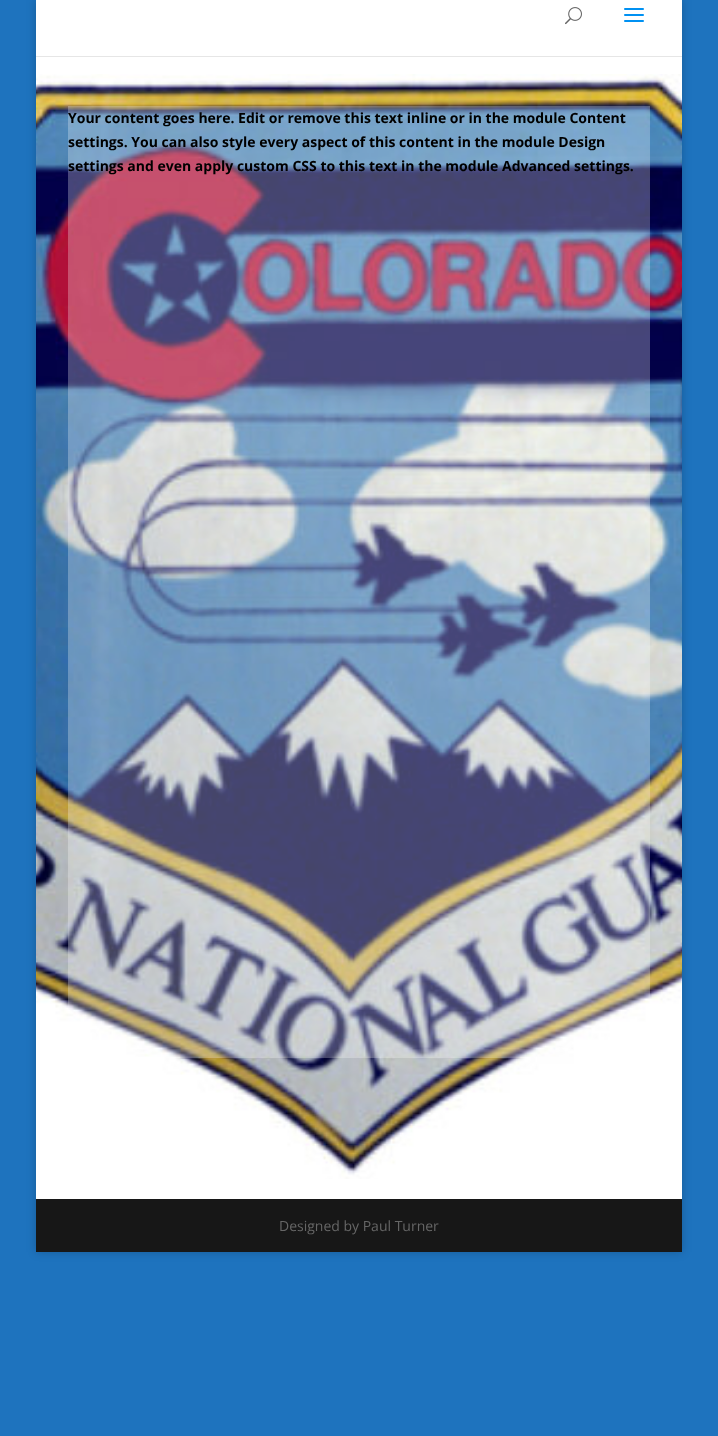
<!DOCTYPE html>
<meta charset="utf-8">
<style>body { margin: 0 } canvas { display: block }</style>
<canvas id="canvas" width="718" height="1436"></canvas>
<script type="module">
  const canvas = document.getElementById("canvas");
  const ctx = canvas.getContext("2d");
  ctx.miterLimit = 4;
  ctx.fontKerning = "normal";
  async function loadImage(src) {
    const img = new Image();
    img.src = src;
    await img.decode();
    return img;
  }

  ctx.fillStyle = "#1e73be";
  ctx.fillRect(0, 0, 718, 1436);
  ctx.fillStyle = "rgba(0, 0, 0, 0.2)";
  ctx.filter = "blur(5px)";
  ctx.beginPath();
  ctx.rect(36, 0, 646, 1252);
  ctx.fill();
  ctx.filter = "none";
  ctx.fillStyle = "#e6e6e6";
  ctx.fillRect(36, 56, 646, 1);
  ctx.fillStyle = "#ffffff";
  ctx.fillRect(36, 0, 646, 56);
  ctx.drawImage(await loadImage("img1.png"), 565, 7, 17, 18);
  ctx.drawImage(await loadImage("img2.png"), 624, 8, 20, 14);
  ctx.fillRect(36, 57, 646, 1142);
  ctx.drawImage(await loadImage("img3.png"), 36, 74, 646, 1105);
  ctx.fillStyle = "rgba(255, 255, 255, 0.27)";
  ctx.fillRect(68, 106, 582, 952);
  ctx.font = "bold 14px Open Sans";
  ctx.fillStyle = "#000000";
  ctx.fillText("Your content goes here. Edit or remove this text inline or in the module Content", 68, 123);
  ctx.fillText("settings. You can also style every aspect of this content in the module Design", 68, 147);
  ctx.fillText("settings and even apply custom CSS to this text in the module Advanced settings.", 68, 171);
  ctx.fillStyle = "#171717";
  ctx.fillRect(36, 1199, 646, 53);
  ctx.font = "14px Open Sans";
  ctx.fillStyle = "#666666";
  ctx.fillText("Designed by Paul Turner", 279, 1231);
</script>
